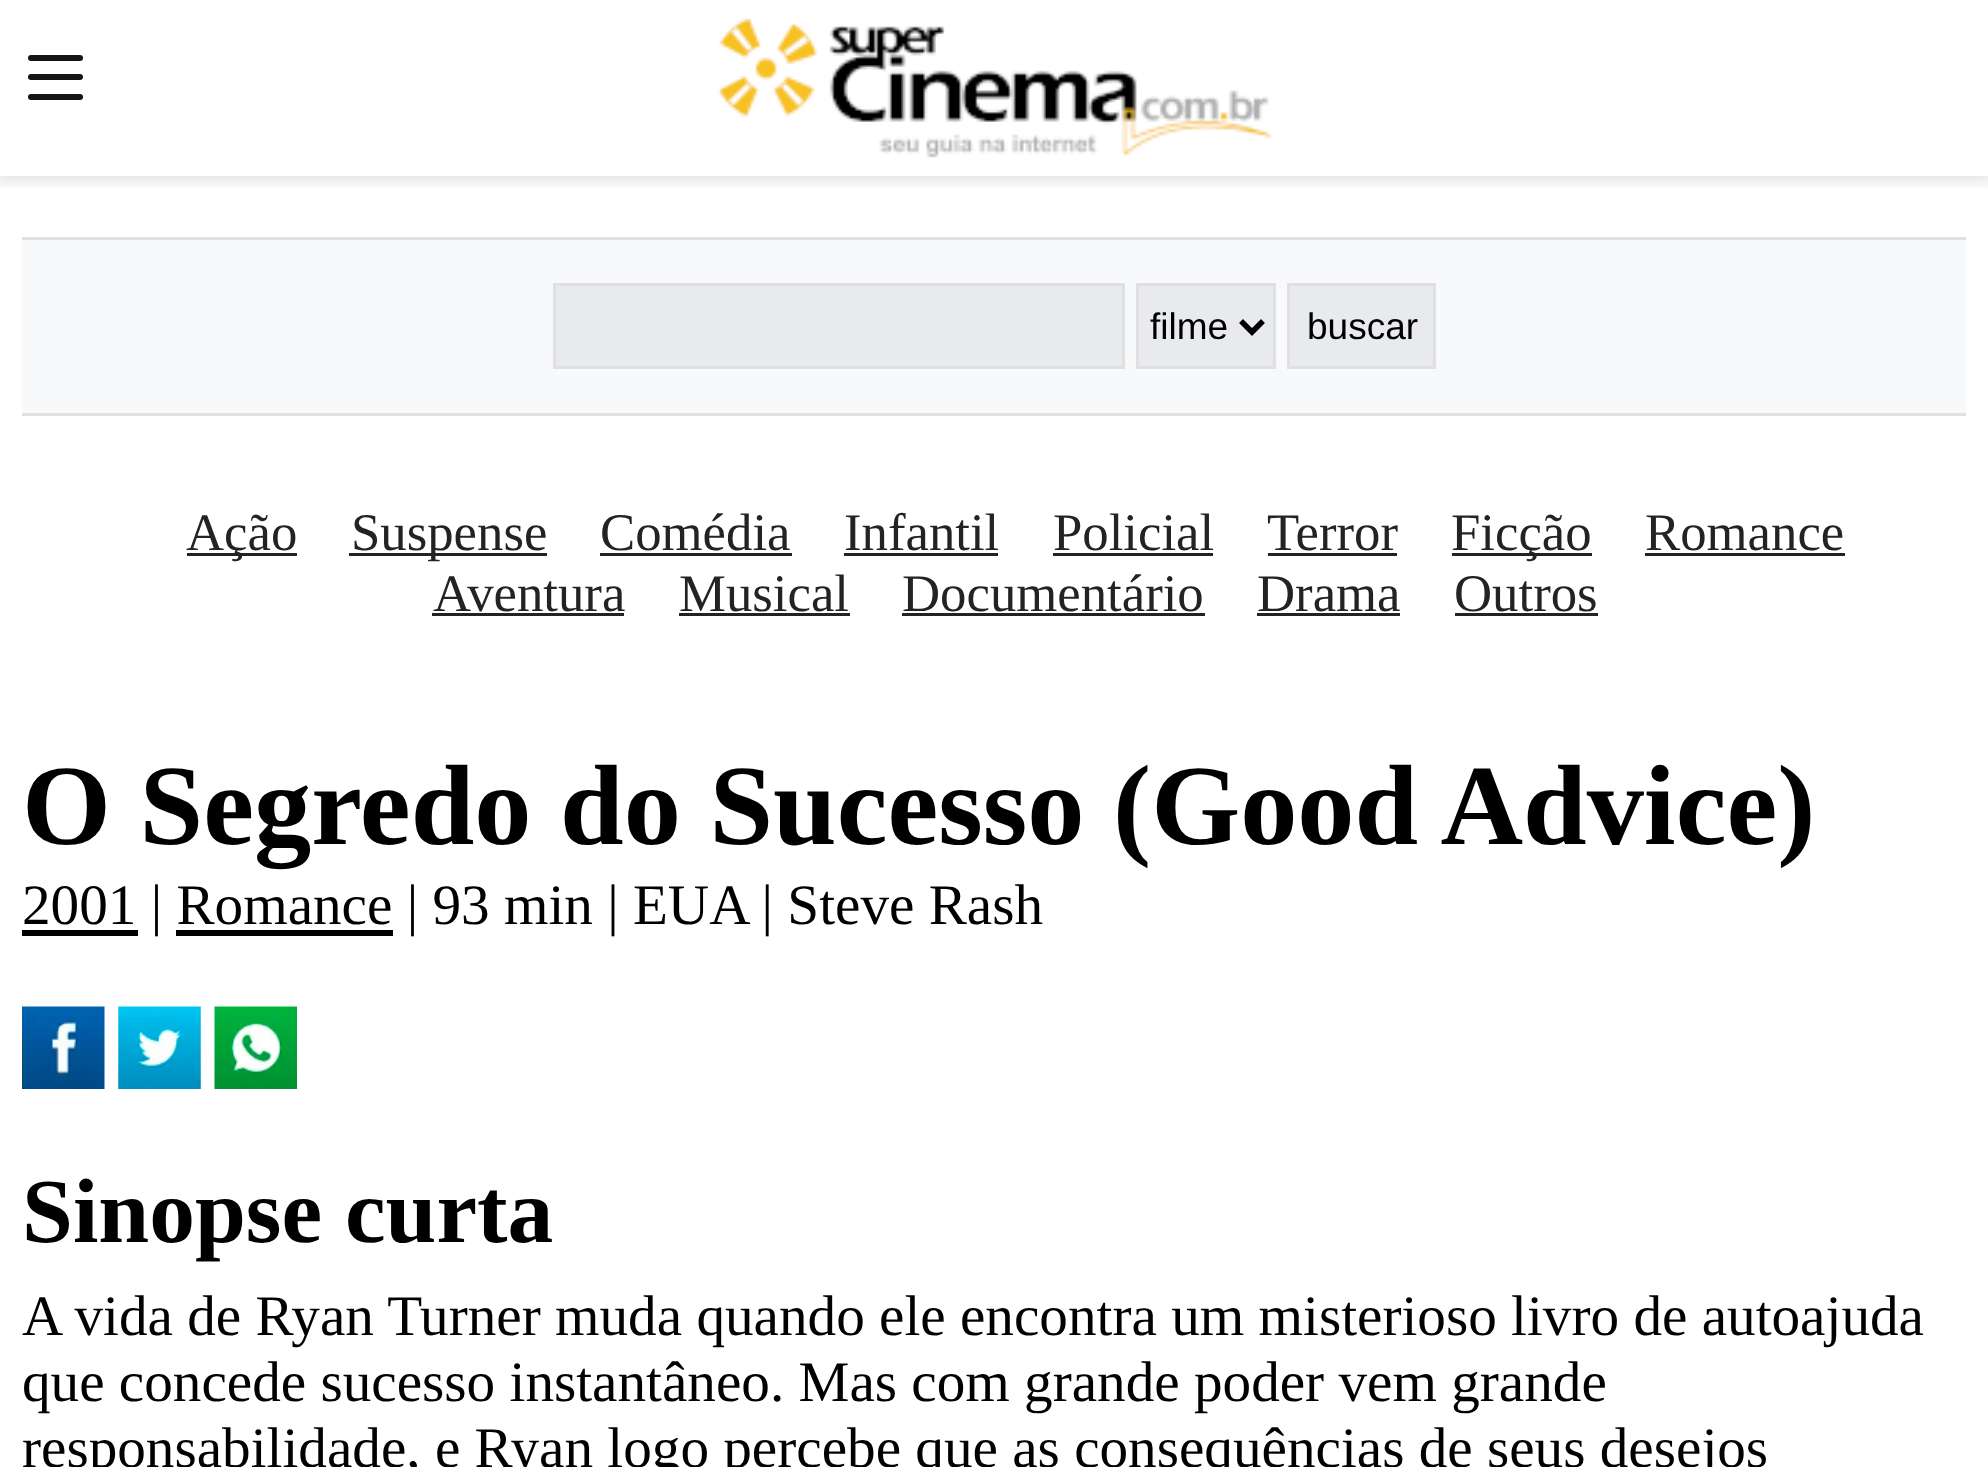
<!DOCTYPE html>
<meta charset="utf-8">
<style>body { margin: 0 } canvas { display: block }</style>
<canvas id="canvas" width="1988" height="1467"></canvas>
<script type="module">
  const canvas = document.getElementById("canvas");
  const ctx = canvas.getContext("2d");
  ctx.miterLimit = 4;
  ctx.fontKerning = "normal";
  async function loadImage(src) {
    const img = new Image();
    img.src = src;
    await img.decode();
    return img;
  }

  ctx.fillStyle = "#ffffff";
  ctx.fillRect(0, 0, 1988, 1467);
  ctx.save();
  ctx.beginPath();
  ctx.rect(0, 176, 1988, 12);
  ctx.clip();
  ctx.fillStyle = "rgba(0, 0, 0, 0.1)";
  ctx.filter = "blur(7px)";
  ctx.beginPath();
  ctx.rect(-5, -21, 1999, 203);
  ctx.fill();
  ctx.filter = "none";
  ctx.restore();
  ctx.fillStyle = "#161515";
  ctx.beginPath();
  ctx.roundRect(28, 55, 55, 6, 3);
  ctx.fill();
  ctx.beginPath();
  ctx.roundRect(28, 74, 55, 6, 3);
  ctx.fill();
  ctx.beginPath();
  ctx.roundRect(28, 94, 55, 6, 3);
  ctx.fill();
  ctx.drawImage(await loadImage("img1.png"), 717, 18, 555, 140);
  ctx.fillStyle = "#f8f9fa";
  ctx.fillRect(22, 240, 1944, 173);
  ctx.fillStyle = "#e0e0e0";
  ctx.fillRect(22, 237, 1944, 3);
  ctx.fillRect(22, 413, 1944, 3);
  ctx.fillStyle = "#e8eaed";
  ctx.beginPath();
  ctx.rect(554.5, 284.5, 569, 83);
  ctx.fill();
  ctx.strokeStyle = "#e0e0e0";
  ctx.lineWidth = 3;
  ctx.stroke();
  ctx.beginPath();
  ctx.rect(1137.5, 284.5, 137, 83);
  ctx.fill();
  ctx.stroke();
  ctx.beginPath();
  ctx.moveTo(1241, 321);
  ctx.lineTo(1252, 332);
  ctx.lineTo(1263, 321);
  ctx.strokeStyle = "#000000";
  ctx.lineWidth = 5.5;
  ctx.stroke();
  ctx.font = "37px Liberation Sans";
  ctx.fillStyle = "#000000";
  ctx.fillText("filme", 1150, 339);
  ctx.fillStyle = "#e8eaed";
  ctx.beginPath();
  ctx.rect(1288.5, 284.5, 146, 83);
  ctx.fill();
  ctx.strokeStyle = "#e0e0e0";
  ctx.lineWidth = 3;
  ctx.stroke();
  ctx.fillStyle = "#000000";
  ctx.fillText("buscar", 1307, 339);
  ctx.fillStyle = "#232323";
  ctx.fillRect(187, 553, 110, 3);
  ctx.font = "52.75px Liberation Serif";
  ctx.fillText("Ação", 186, 550);
  ctx.fillRect(349, 553, 198, 3);
  ctx.fillText("Suspense", 351, 550);
  ctx.fillText("Comédia", 600, 550);
  ctx.fillRect(600, 553, 192, 3);
  ctx.fillText("Infantil", 844, 550);
  ctx.fillRect(844, 553, 154, 3);
  ctx.fillText("Policial", 1053, 550);
  ctx.fillRect(1053, 553, 160, 3);
  ctx.fillText("Terror", 1267, 550);
  ctx.fillRect(1268, 553, 129, 3);
  ctx.fillRect(1452, 553, 140, 3);
  ctx.fillText("Ficção", 1451, 550);
  ctx.fillText("Romance", 1645, 550);
  ctx.fillRect(1645, 553, 200, 3);
  ctx.fillText("Aventura", 433, 611);
  ctx.fillRect(432, 613, 192, 3);
  ctx.fillText("Musical", 679, 611);
  ctx.fillRect(679, 613, 171, 3);
  ctx.fillText("Documentário", 902, 611);
  ctx.fillRect(902, 613, 303, 3);
  ctx.fillText("Drama", 1257, 611);
  ctx.fillRect(1257, 613, 143, 3);
  ctx.fillText("Outros", 1454, 611);
  ctx.fillRect(1455, 613, 143, 3);
  ctx.font = "bold 114.4px Liberation Serif";
  ctx.fillStyle = "#000000";
  ctx.fillText("O Segredo do Sucesso (Good Advice)", 22, 844);
  ctx.fillRect(22, 930, 116, 6);
  ctx.font = "57.2px Liberation Serif";
  ctx.fillText("2001 | Romance | 93 min | EUA | Steve Rash", 22, 924);
  ctx.fillRect(176, 930, 217, 6);
  ctx.drawImage(await loadImage("img2.png"), 22, 1006, 83, 83);
  ctx.drawImage(await loadImage("img3.png"), 118, 1006, 83, 83);
  ctx.drawImage(await loadImage("img4.png"), 214, 1006, 83, 83);
  ctx.font = "bold 91.5px Liberation Serif";
  ctx.fillText("Sinopse curta", 22, 1242);
  ctx.font = "57.2px Liberation Serif";
  ctx.fillText("A vida de Ryan Turner muda quando ele encontra um misterioso livro de autoajuda", 22, 1335);
  ctx.fillText("que concede sucesso instantâneo. Mas com grande poder vem grande", 22, 1401);
  ctx.fillText("responsabilidade, e Ryan logo percebe que as consequências de seus desejos", 22, 1467);
</script>
